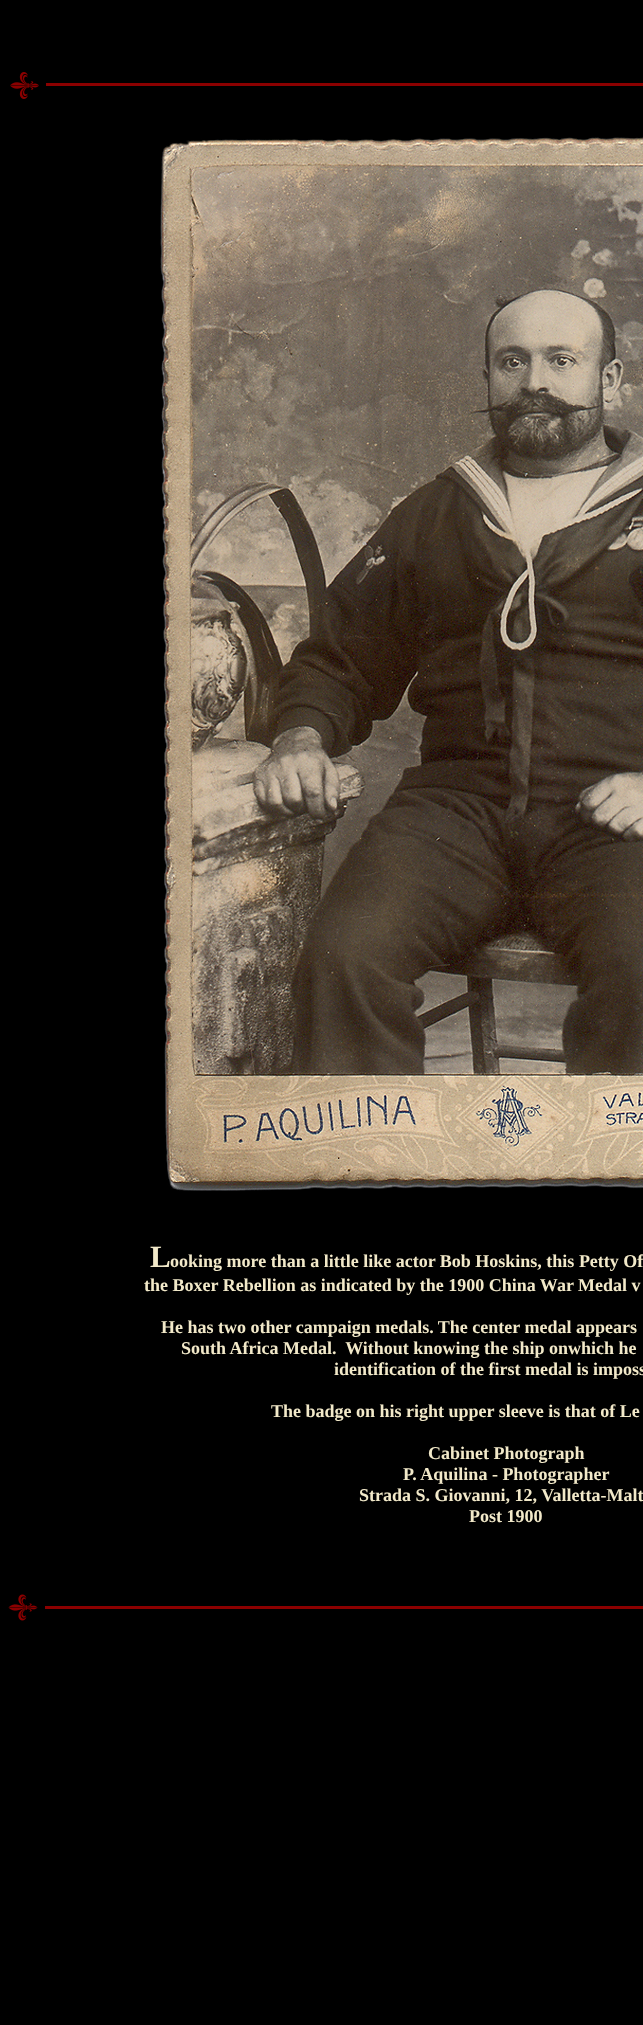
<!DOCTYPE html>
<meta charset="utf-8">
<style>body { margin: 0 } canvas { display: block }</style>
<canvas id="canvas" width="643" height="2025"></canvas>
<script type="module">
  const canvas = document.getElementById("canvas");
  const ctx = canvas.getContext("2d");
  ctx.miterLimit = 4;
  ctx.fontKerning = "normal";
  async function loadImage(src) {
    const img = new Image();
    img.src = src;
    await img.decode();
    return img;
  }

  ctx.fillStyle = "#000000";
  ctx.fillRect(0, 0, 643, 2025);
  ctx.drawImage(await loadImage("img1.png"), 10, 72, 29, 27);
  ctx.fillStyle = "#8b0000";
  ctx.fillRect(46, 83, 597, 3);
  ctx.drawImage(await loadImage("img2.png"), 160, 137, 483, 1054);
  ctx.font = "bold 31px Liberation Serif";
  ctx.fillStyle = "#f2e9c9";
  ctx.fillText("L", 150, 1267);
  ctx.font = "bold 18px Liberation Serif";
  ctx.fillText("ooking more than a little like actor Bob Hoskins, this Petty Of", 170, 1267);
  ctx.fillText("the Boxer Rebellion as indicated by the 1900 China War Medal v", 144, 1291);
  ctx.fillText("He has two other campaign medals. The center medal appears", 161, 1333);
  ctx.fillText("South Africa Medal.  Without knowing the ship onwhich he", 181, 1354);
  ctx.fillText("identification of the first medal is imposs", 334, 1375);
  ctx.fillText("The badge on his right upper sleeve is that of Le", 271, 1417);
  ctx.fillText("Cabinet Photograph", 428, 1459);
  ctx.fillText("P. Aquilina - Photographer", 403, 1480);
  ctx.fillText("Strada S. Giovanni, 12, Valletta-Malt", 359, 1501);
  ctx.fillText("Post 1900", 469, 1522);
  ctx.drawImage(await loadImage("img3.png"), 8, 1594, 30, 27);
  ctx.fillStyle = "#8b0000";
  ctx.fillRect(45, 1606, 598, 3);
</script>
